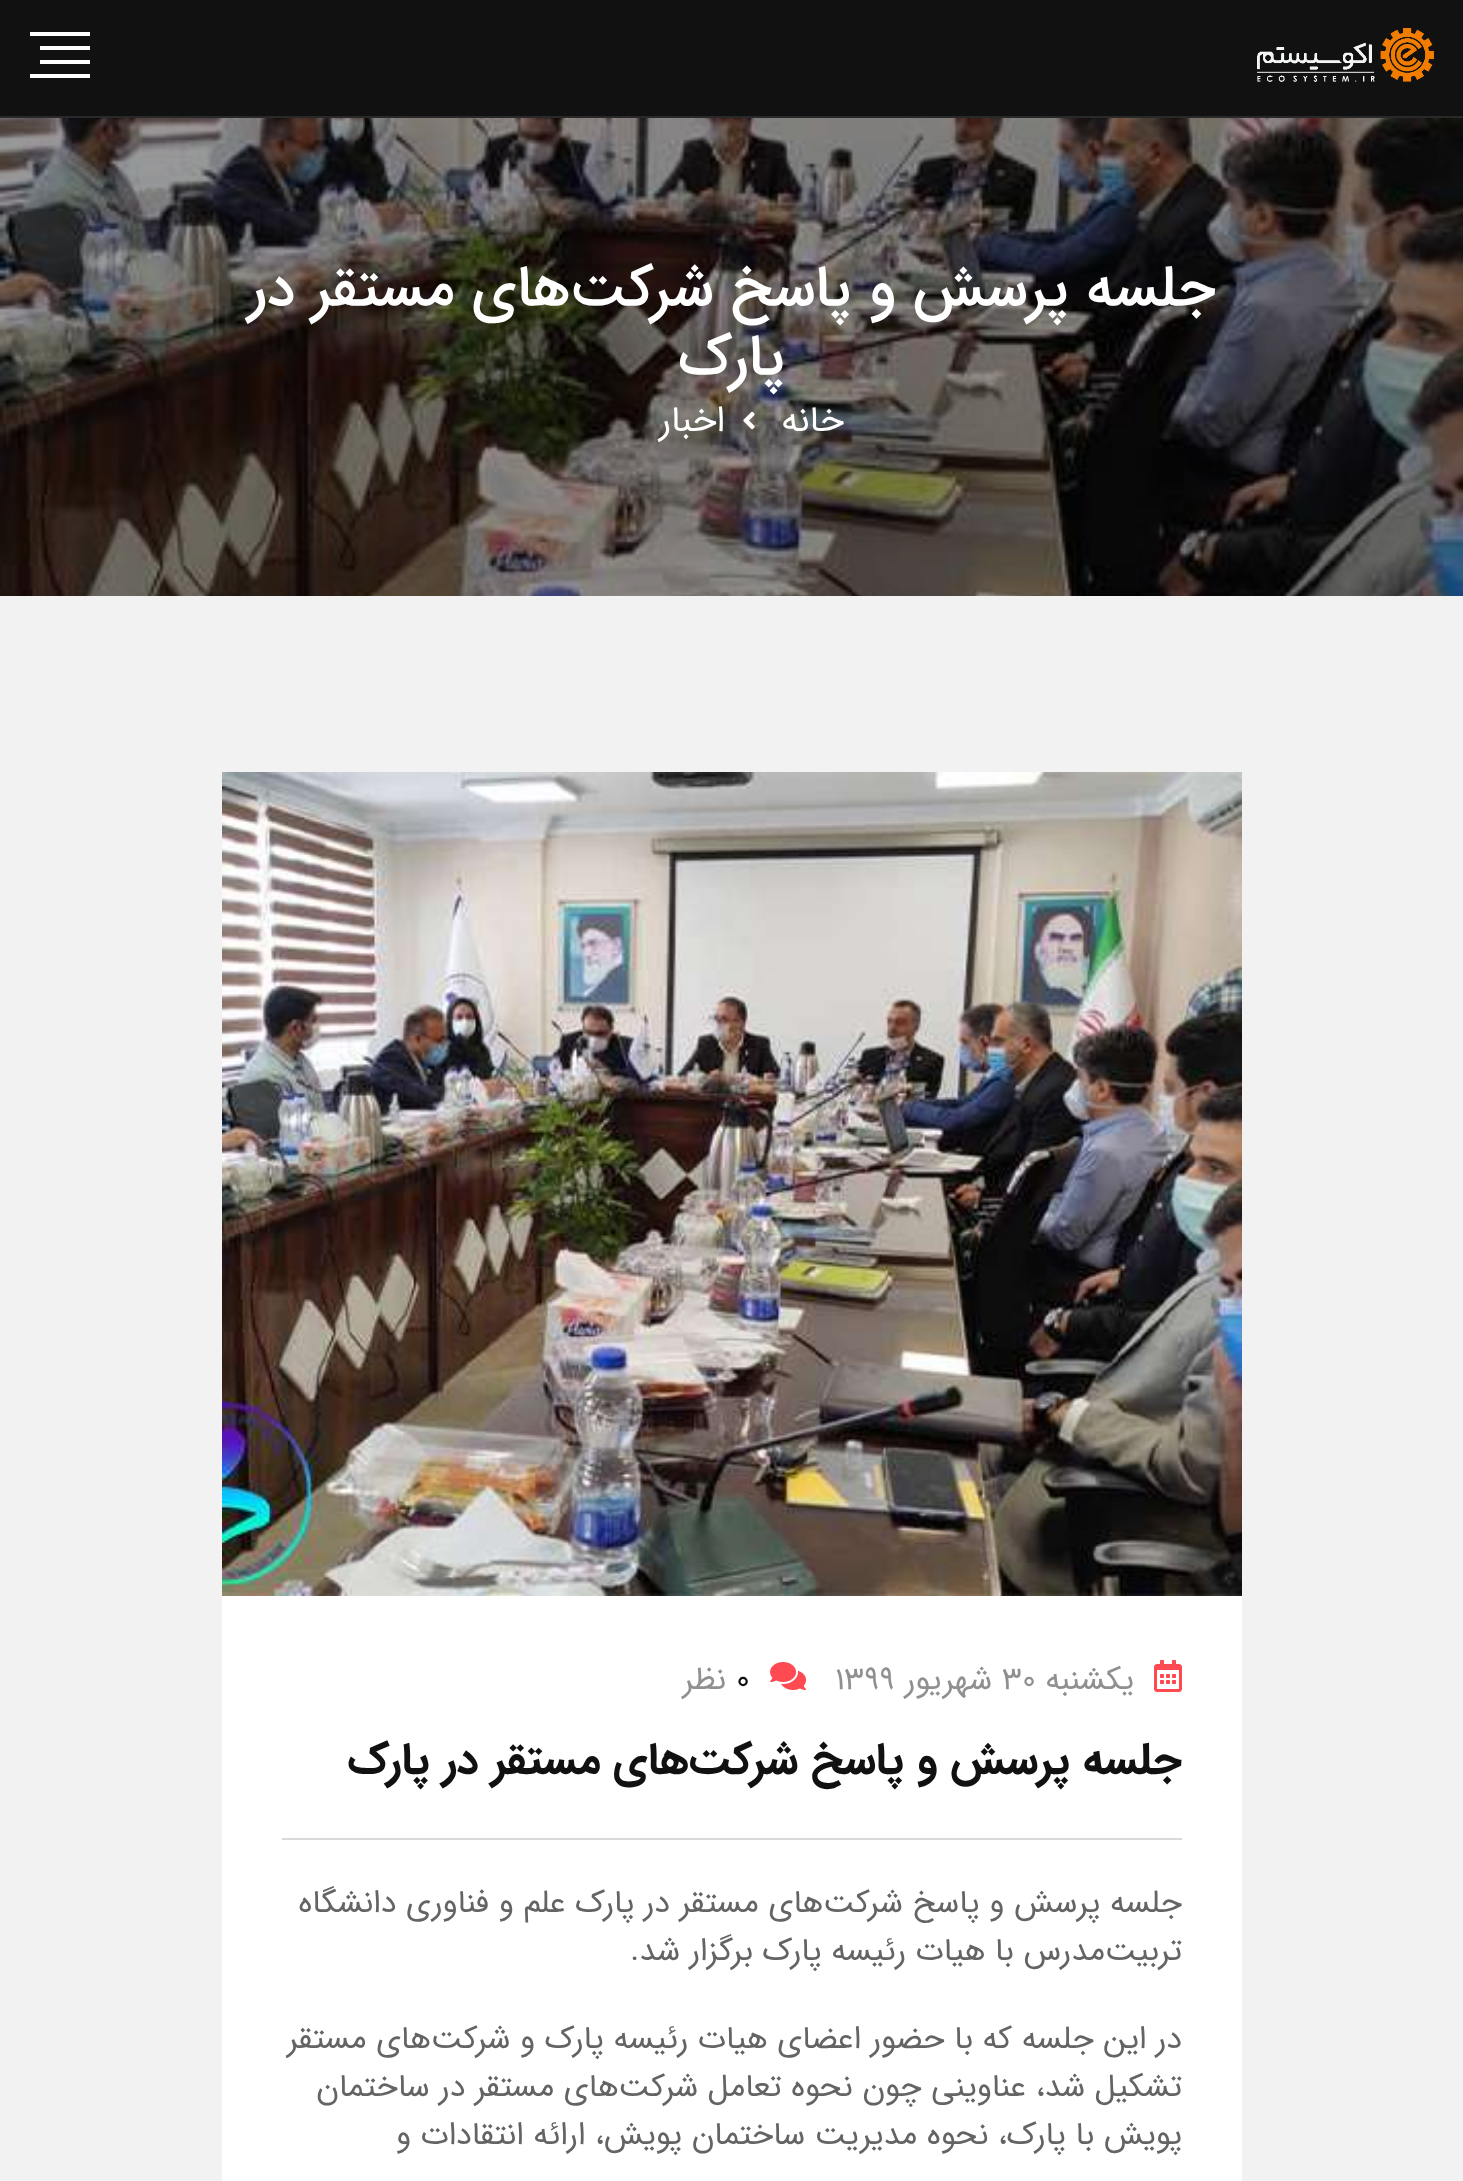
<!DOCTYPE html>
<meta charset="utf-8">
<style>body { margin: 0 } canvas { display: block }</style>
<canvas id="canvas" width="1463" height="2181"></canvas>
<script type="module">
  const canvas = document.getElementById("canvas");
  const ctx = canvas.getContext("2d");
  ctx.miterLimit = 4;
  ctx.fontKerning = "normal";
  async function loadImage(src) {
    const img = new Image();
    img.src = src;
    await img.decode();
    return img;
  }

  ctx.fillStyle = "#f2f2f2";
  ctx.fillRect(0, 0, 1463, 2181);
  ctx.fillStyle = "#111111";
  ctx.fillRect(0, 0, 1463, 116);
  ctx.fillStyle = "#292929";
  ctx.fillRect(0, 116, 1463, 2);
  ctx.drawImage(await loadImage("img1.png"), 1257, 28, 177, 54);
  ctx.fillStyle = "#ffffff";
  ctx.fillRect(30, 32, 60, 4);
  ctx.fillRect(40, 46, 50, 4);
  ctx.fillRect(40, 60, 50, 4);
  ctx.fillRect(30, 74, 60, 4);
  ctx.drawImage(await loadImage("img2.png"), 0, 118, 1463, 478);
  ctx.direction = "rtl";
  ctx.font = "500 57.6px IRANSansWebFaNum";
  ctx.fillText("جلسه پرسش و پاسخ شرکت‌های مستقر در", 1216, 305);
  ctx.fillText("پارک", 785, 374);
  ctx.font = "36px IRANSansWebFaNum";
  ctx.fillText("خانه", 844, 431);
  ctx.drawImage(await loadImage("img3.png"), 743, 411, 12, 19);
  ctx.fillText("اخبار", 725, 431);
  ctx.drawImage(await loadImage("img4.png"), 222, 772, 1020, 824);
  ctx.fillRect(222, 1596, 1020, 585);
  ctx.drawImage(await loadImage("img5.png"), 1154, 1660, 28, 32);
  ctx.font = "32px IRANSansWebFaNum";
  ctx.fillStyle = "#909090";
  ctx.fillText("یکشنبه", 1134, 1689);
  ctx.direction = "ltr";
  ctx.fillText("30", 1002, 1689);
  ctx.direction = "rtl";
  ctx.fillText("شهریور", 992, 1689);
  ctx.direction = "ltr";
  ctx.fillText("1399", 835, 1689);
  ctx.drawImage(await loadImage("img6.png"), 770, 1662, 36, 28);
  ctx.fillStyle = "#111111";
  ctx.fillText("0", 736, 1689);
  ctx.direction = "rtl";
  ctx.fillStyle = "#909090";
  ctx.fillText("نظر", 726, 1689);
  ctx.fillStyle = "#d9d9d9";
  ctx.fillRect(282, 1838, 900, 2);
  ctx.font = "bold 44px IRANSansWebFaNum";
  ctx.fillStyle = "#111111";
  ctx.fillText("جلسه پرسش و پاسخ شرکت‌های مستقر در پارک", 1182, 1773);
  ctx.font = "32px IRANSansWebFaNum";
  ctx.fillStyle = "#646464";
  ctx.fillText("جلسه پرسش و پاسخ شرکت‌های مستقر در پارک علم و فناوری دانشگاه", 1182, 1912);
  ctx.fillText("تربیت‌مدرس با هیات رئیسه پارک برگزار شد.", 1182, 1960);
  ctx.fillText("در این جلسه که با حضور اعضای هیات رئیسه پارک و شرکت‌های مستقر", 1182, 2048);
  ctx.fillText("تشکیل شد، عناوینی چون نحوه تعامل شرکت‌های مستقر در ساختمان", 1182, 2096);
  ctx.fillText("پویش با پارک، نحوه مدیریت ساختمان پویش، ارائه انتقادات و", 1182, 2144);
</script>
